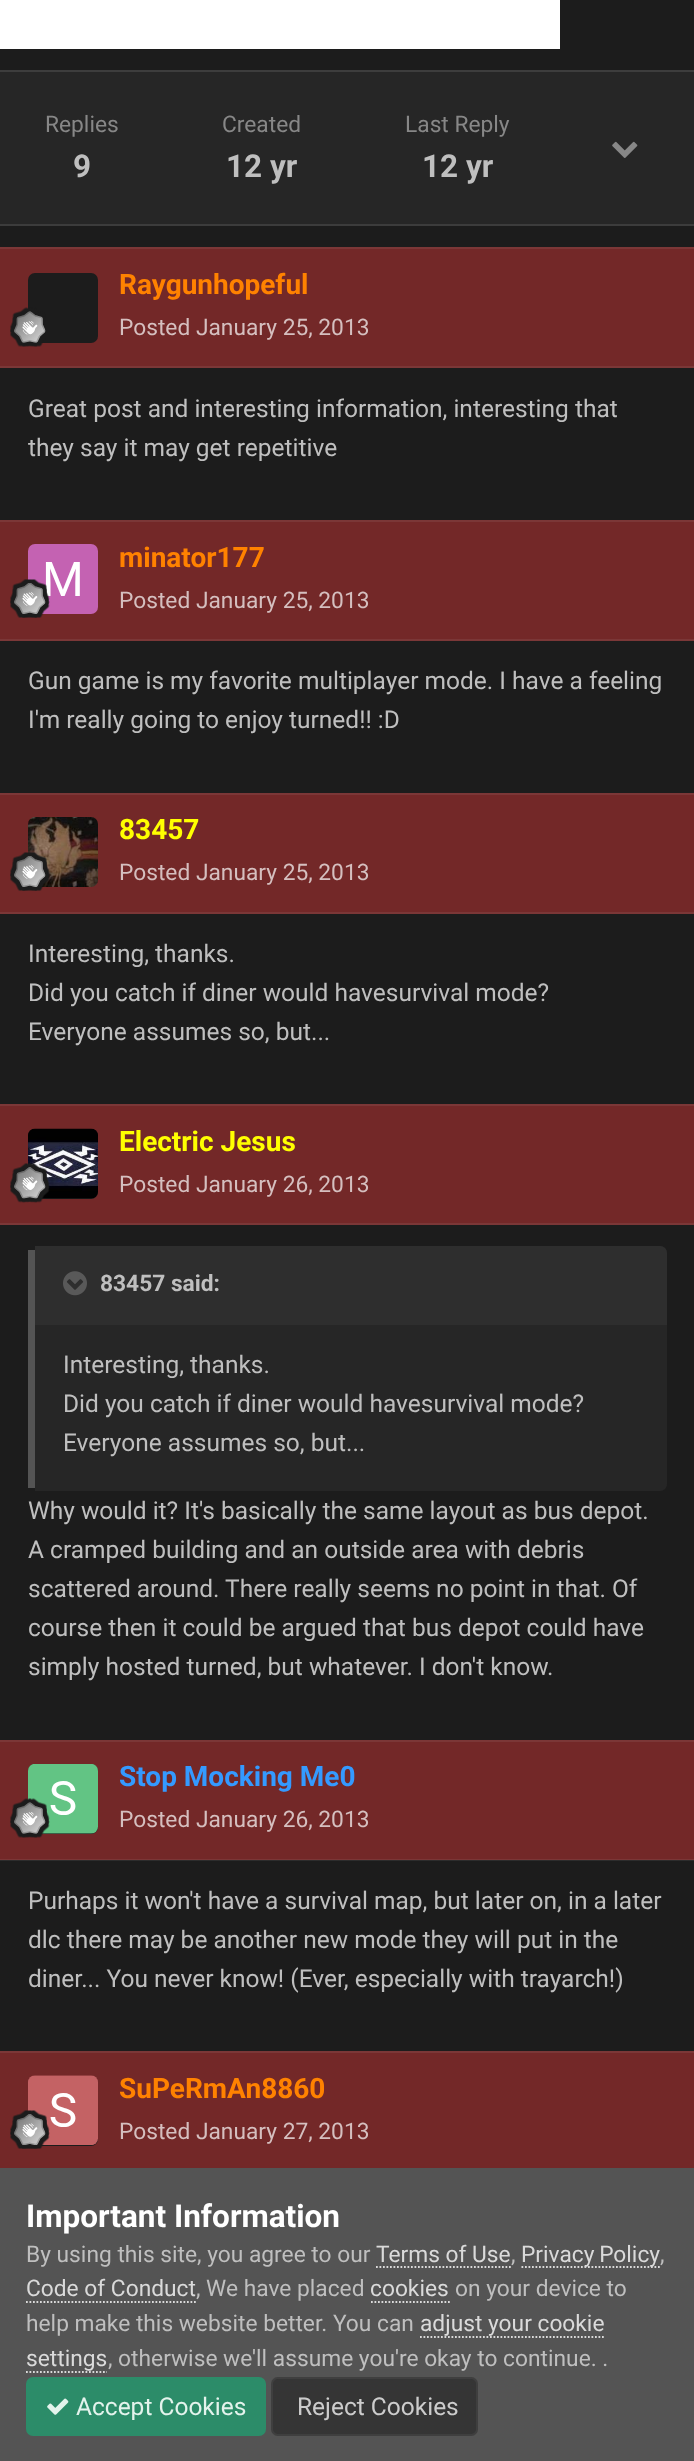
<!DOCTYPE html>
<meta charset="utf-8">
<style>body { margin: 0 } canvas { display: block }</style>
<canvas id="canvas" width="694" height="2461"></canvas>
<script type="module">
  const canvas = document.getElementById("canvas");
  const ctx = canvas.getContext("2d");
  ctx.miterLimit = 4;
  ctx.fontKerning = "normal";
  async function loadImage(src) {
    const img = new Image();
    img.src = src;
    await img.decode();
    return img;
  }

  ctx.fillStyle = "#1c1c1c";
  ctx.fillRect(0, 0, 694, 2461);
  ctx.fillStyle = "#2c2c2c";
  ctx.fillRect(0, 1860, 694, 1);
  ctx.fillStyle = "#ffffff";
  ctx.fillRect(0, 0, 560, 49);
  ctx.fillStyle = "#3d3d3d";
  ctx.fillRect(0, 70, 694, 2);
  ctx.fillStyle = "#3c3c3c";
  ctx.fillRect(0, 224, 694, 2);
  ctx.fillStyle = "#262626";
  ctx.fillRect(0, 72, 694, 152);
  ctx.font = "22.75px Roboto";
  ctx.fillStyle = "#878787";
  ctx.fillText("Replies", 45, 132);
  ctx.font = "bold 31.5px Roboto";
  ctx.fillStyle = "#bfbfbf";
  ctx.fillText("9", 73, 177);
  ctx.font = "22.75px Roboto";
  ctx.fillStyle = "#878787";
  ctx.fillText("Created", 222, 132);
  ctx.font = "bold 31.5px Roboto";
  ctx.fillStyle = "#bfbfbf";
  ctx.fillText("12 yr", 226, 177);
  ctx.font = "22.75px Roboto";
  ctx.fillStyle = "#878787";
  ctx.fillText("Last Reply", 405, 132);
  ctx.font = "bold 31.5px Roboto";
  ctx.fillStyle = "#bfbfbf";
  ctx.fillText("12 yr", 422, 177);
  ctx.drawImage(await loadImage("img1.png"), 612, 141, 26, 17);
  ctx.fillStyle = "#732828";
  ctx.fillRect(0, 249, 694, 117);
  ctx.fillStyle = "#7b3737";
  ctx.fillRect(0, 247, 694, 2);
  ctx.fillRect(0, 366, 694, 2);
  ctx.fillStyle = "#1c1c1c";
  ctx.beginPath();
  ctx.roundRect(28, 273, 70, 70, 7);
  ctx.fill();
  ctx.drawImage(await loadImage("img2.png"), 10, 307, 36, 40);
  ctx.font = "bold 28px Roboto";
  ctx.fillStyle = "#ff8200";
  ctx.fillText("Raygunhopeful", 119, 294);
  ctx.font = "22.75px Roboto";
  ctx.fillStyle = "#d5bfbf";
  ctx.fillText("Posted January 25, 2013", 119, 335);
  ctx.font = "24.5px Roboto";
  ctx.fillStyle = "#bfbfbf";
  ctx.fillText("Great post and interesting information, interesting that", 28, 417);
  ctx.fillText("they say it may get repetitive", 28, 456);
  ctx.fillStyle = "#732828";
  ctx.fillRect(0, 522, 694, 117);
  ctx.fillStyle = "#7b3737";
  ctx.fillRect(0, 520, 694, 2);
  ctx.fillRect(0, 639, 694, 2);
  ctx.drawImage(await loadImage("img3.png"), 28, 544, 70, 70);
  ctx.drawImage(await loadImage("img4.png"), 10, 579, 40, 39);
  ctx.font = "bold 28px Roboto";
  ctx.fillStyle = "#ff8200";
  ctx.fillText("minator177", 119, 567);
  ctx.font = "22.75px Roboto";
  ctx.fillStyle = "#d5bfbf";
  ctx.fillText("Posted January 25, 2013", 119, 608);
  ctx.font = "24.5px Roboto";
  ctx.fillStyle = "#bfbfbf";
  ctx.fillText("Gun game is my favorite multiplayer mode. I have a feeling", 28, 689);
  ctx.fillText("I'm really going to enjoy turned!! :D", 28, 728);
  ctx.fillStyle = "#732828";
  ctx.fillRect(0, 795, 694, 117);
  ctx.fillStyle = "#7b3737";
  ctx.fillRect(0, 793, 694, 2);
  ctx.fillRect(0, 912, 694, 2);
  ctx.drawImage(await loadImage("img5.png"), 28, 817, 70, 70);
  ctx.drawImage(await loadImage("img6.png"), 10, 852, 40, 39);
  ctx.font = "bold 28px Roboto";
  ctx.fillStyle = "#ffff00";
  ctx.fillText("83457", 119, 839);
  ctx.font = "22.75px Roboto";
  ctx.fillStyle = "#d5bfbf";
  ctx.fillText("Posted January 25, 2013", 119, 880);
  ctx.font = "24.5px Roboto";
  ctx.fillStyle = "#bfbfbf";
  ctx.fillText("Interesting, thanks.", 28, 962);
  ctx.fillText("Did you catch if diner would havesurvival mode?", 28, 1001);
  ctx.fillText("Everyone assumes so, but...", 28, 1040);
  ctx.fillStyle = "#732828";
  ctx.fillRect(0, 1106, 694, 117);
  ctx.fillStyle = "#7b3737";
  ctx.fillRect(0, 1104, 694, 2);
  ctx.fillRect(0, 1223, 694, 2);
  ctx.fillStyle = "#1c1c1c";
  ctx.beginPath();
  ctx.roundRect(28, 1129, 70, 70, 7);
  ctx.fill();
  ctx.drawImage(await loadImage("img7.png"), 28, 1128, 70, 71);
  ctx.drawImage(await loadImage("img8.png"), 10, 1163, 40, 40);
  ctx.font = "bold 28px Roboto";
  ctx.fillStyle = "#ffff00";
  ctx.fillText("Electric Jesus", 119, 1151);
  ctx.font = "22.75px Roboto";
  ctx.fillStyle = "#d5bfbf";
  ctx.fillText("Posted January 26, 2013", 119, 1192);
  ctx.fillStyle = "#262626";
  ctx.beginPath();
  ctx.moveTo(35, 1246);
  ctx.lineTo(660, 1246);
  ctx.bezierCurveTo(664, 1246, 667, 1249, 667, 1253);
  ctx.lineTo(667, 1484);
  ctx.bezierCurveTo(667, 1488, 664, 1491, 660, 1491);
  ctx.lineTo(35, 1491);
  ctx.closePath();
  ctx.fill();
  ctx.fillStyle = "#545454";
  ctx.fillRect(28, 1250, 7, 238);
  ctx.fillStyle = "#2e2e2e";
  ctx.beginPath();
  ctx.roundRect(35, 1246, 632, 79, [0, 7, 0, 0]);
  ctx.fill();
  ctx.drawImage(await loadImage("img9.png"), 63, 1271, 24, 25);
  ctx.font = "bold 22.75px Roboto";
  ctx.fillStyle = "#bfbfbf";
  ctx.fillText("83457 said:", 100, 1291);
  ctx.font = "24.5px Roboto";
  ctx.fillText("Interesting, thanks.", 63, 1373);
  ctx.fillText("Did you catch if diner would havesurvival mode?", 63, 1412);
  ctx.fillText("Everyone assumes so, but...", 63, 1451);
  ctx.fillText("Why would it? It's basically the same layout as bus depot.", 28, 1519);
  ctx.fillText("A cramped building and an outside area with debris", 28, 1558);
  ctx.fillText("scattered around. There really seems no point in that. Of", 28, 1597);
  ctx.fillText("course then it could be argued that bus depot could have", 28, 1636);
  ctx.fillText("simply hosted turned, but whatever. I don't know.", 28, 1675);
  ctx.fillStyle = "#732828";
  ctx.fillRect(0, 1742, 694, 117);
  ctx.fillStyle = "#7b3737";
  ctx.fillRect(0, 1859, 694, 1);
  ctx.fillRect(0, 1740, 694, 2);
  ctx.fillStyle = "#1c1c1c";
  ctx.beginPath();
  ctx.roundRect(28, 1764, 70, 70, 7);
  ctx.fill();
  ctx.drawImage(await loadImage("img10.png"), 28, 1764, 70, 70);
  ctx.drawImage(await loadImage("img11.png"), 10, 1798, 40, 40);
  ctx.font = "bold 28px Roboto";
  ctx.fillStyle = "#349aff";
  ctx.fillText("Stop Mocking Me0", 119, 1786);
  ctx.font = "22.75px Roboto";
  ctx.fillStyle = "#d5bfbf";
  ctx.fillText("Posted January 26, 2013", 119, 1827);
  ctx.font = "24.5px Roboto";
  ctx.fillStyle = "#bfbfbf";
  ctx.fillText("Purhaps it won't have a survival map, but later on, in a later", 28, 1909);
  ctx.fillText("dlc there may be another new mode they will put in the", 28, 1948);
  ctx.fillText("diner... You never know! (Ever, especially with trayarch!)", 28, 1987);
  ctx.fillStyle = "#732828";
  ctx.fillRect(0, 2053, 694, 115);
  ctx.fillStyle = "#7b3737";
  ctx.fillRect(0, 2051, 694, 2);
  ctx.fillStyle = "#1c1c1c";
  ctx.beginPath();
  ctx.roundRect(28, 2076, 70, 70, 7);
  ctx.fill();
  ctx.drawImage(await loadImage("img12.png"), 28, 2075, 70, 70);
  ctx.drawImage(await loadImage("img13.png"), 10, 2110, 40, 39);
  ctx.font = "bold 28px Roboto";
  ctx.fillStyle = "#ff8200";
  ctx.fillText("SuPeRmAn8860", 119, 2098);
  ctx.font = "22.75px Roboto";
  ctx.fillStyle = "#d5bfbf";
  ctx.fillText("Posted January 27, 2013", 119, 2139);
  ctx.fillStyle = "#545454";
  ctx.fillRect(0, 2168, 694, 293);
  ctx.font = "bold 31.5px Roboto";
  ctx.fillStyle = "#ffffff";
  ctx.fillText("Important Information", 26, 2227);
  ctx.font = "22.75px Roboto";
  ctx.fillStyle = "#bfbfbf";
  ctx.fillText("By using this site, you agree to our", 26, 2262);
  ctx.fillStyle = "#dadada";
  ctx.fillText("Terms of Use", 376, 2262);
  ctx.beginPath();
  ctx.moveTo(376, 2267);
  ctx.lineTo(511, 2267);
  ctx.strokeStyle = "#dadada";
  ctx.lineWidth = 1.8;
  ctx.setLineDash([1.75, 1.75]);
  ctx.stroke();
  ctx.fillStyle = "#bfbfbf";
  ctx.fillText(",", 511, 2262);
  ctx.beginPath();
  ctx.moveTo(521.5, 2267);
  ctx.lineTo(660, 2267);
  ctx.stroke();
  ctx.wordSpacing = "-1px";
  ctx.fillStyle = "#dadada";
  ctx.fillText("Privacy Policy", 521, 2262);
  ctx.wordSpacing = "0px";
  ctx.fillStyle = "#bfbfbf";
  ctx.fillText(",", 660, 2262);
  ctx.fillStyle = "#dadada";
  ctx.fillText("Code of Conduct", 26, 2296);
  ctx.beginPath();
  ctx.moveTo(26, 2302);
  ctx.lineTo(196, 2302);
  ctx.stroke();
  ctx.fillStyle = "#bfbfbf";
  ctx.fillText(", We have placed", 196, 2296);
  ctx.fillStyle = "#dadada";
  ctx.fillText("cookies", 370, 2296);
  ctx.beginPath();
  ctx.moveTo(371, 2302);
  ctx.lineTo(450, 2302);
  ctx.stroke();
  ctx.fillStyle = "#bfbfbf";
  ctx.fillText("on your device to", 455, 2296);
  ctx.fillText("help make this website better. You can", 26, 2331);
  ctx.fillStyle = "#dadada";
  ctx.fillText("adjust your cookie", 420, 2331);
  ctx.beginPath();
  ctx.moveTo(420, 2337);
  ctx.lineTo(604, 2337);
  ctx.stroke();
  ctx.fillText("settings", 26, 2366);
  ctx.beginPath();
  ctx.moveTo(26, 2372);
  ctx.lineTo(107, 2372);
  ctx.stroke();
  ctx.fillStyle = "#bfbfbf";
  ctx.fillText(", otherwise we'll assume you're okay to continue. .", 108, 2366);
  ctx.fillStyle = "#2c8c69";
  ctx.beginPath();
  ctx.roundRect(26, 2377, 240, 59, 7);
  ctx.fill();
  ctx.drawImage(await loadImage("img14.png"), 47, 2398, 22, 17);
  ctx.font = "24.5px Roboto";
  ctx.fillStyle = "#e3f3ec";
  ctx.fillText("Accept Cookies", 76, 2415);
  ctx.fillStyle = "#353535";
  ctx.beginPath();
  ctx.roundRect(271, 2377, 207, 59, 7);
  ctx.fill();
  ctx.beginPath();
  ctx.roundRect(272, 2378, 205, 57, 6);
  ctx.strokeStyle = "rgba(204, 204, 204, 0.07)";
  ctx.lineWidth = 2;
  ctx.setLineDash([]);
  ctx.stroke();
  ctx.fillStyle = "#cccccc";
  ctx.fillText("Reject Cookies", 297, 2415);
</script>
